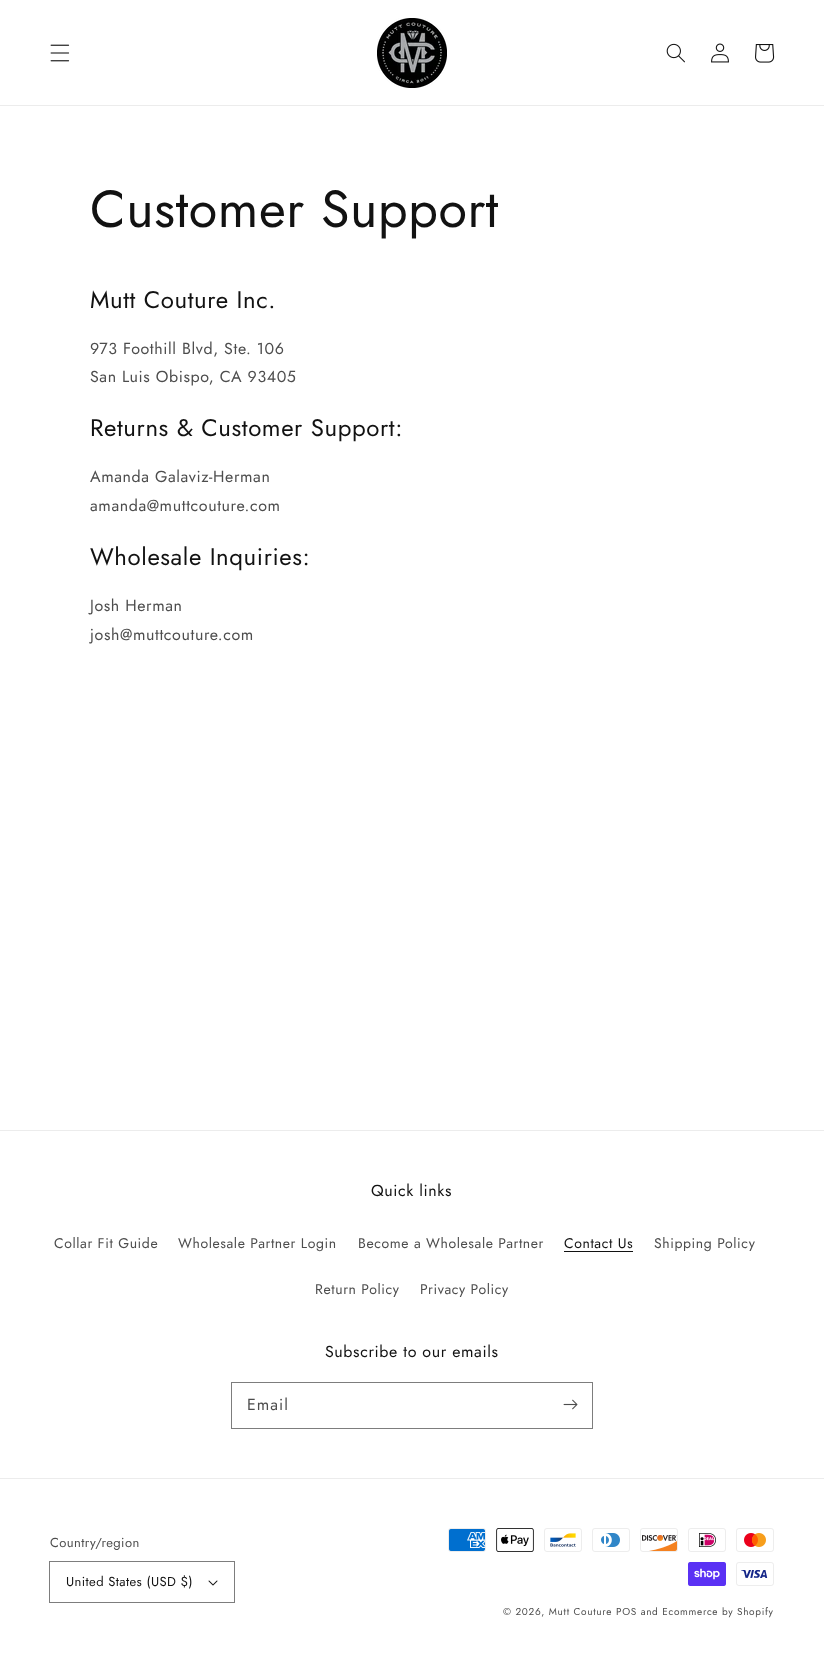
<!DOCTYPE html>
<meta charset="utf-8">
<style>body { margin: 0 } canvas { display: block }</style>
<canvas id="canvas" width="824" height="1656"></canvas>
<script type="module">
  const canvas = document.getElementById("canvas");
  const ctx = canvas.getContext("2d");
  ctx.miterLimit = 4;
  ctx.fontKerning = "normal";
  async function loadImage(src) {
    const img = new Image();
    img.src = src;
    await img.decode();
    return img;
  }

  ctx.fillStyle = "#ffffff";
  ctx.fillRect(0, 0, 824, 1656);
  ctx.fillStyle = "#ececec";
  ctx.fillRect(0, 105, 824, 1);
  ctx.drawImage(await loadImage("img1.png"), 50, 44, 20, 18);
  ctx.drawImage(await loadImage("img2.png"), 377, 18, 70, 70);
  ctx.drawImage(await loadImage("img3.png"), 666, 43, 19, 20);
  ctx.drawImage(await loadImage("img4.png"), 711, 43, 18, 20);
  ctx.drawImage(await loadImage("img5.png"), 755, 44, 20, 19);
  ctx.letterSpacing = "0.6px";
  ctx.font = "52px Jost";
  ctx.fillStyle = "#121212";
  ctx.fillText("Customer Support", 90, 227);
  ctx.font = "24px Jost";
  ctx.fillText("Mutt Couture Inc.", 90, 308);
  ctx.font = "16px Jost";
  ctx.fillStyle = "#4d4d4d";
  ctx.fillText("973 Foothill Blvd, Ste. 106", 90, 354);
  ctx.fillText("San Luis Obispo, CA 93405", 90, 382);
  ctx.font = "24px Jost";
  ctx.fillStyle = "#121212";
  ctx.fillText("Returns & Customer Support:", 90, 436);
  ctx.font = "16px Jost";
  ctx.fillStyle = "#4d4d4d";
  ctx.fillText("Amanda Galaviz-Herman", 90, 482);
  ctx.fillText("amanda@muttcouture.com", 90, 511);
  ctx.font = "24px Jost";
  ctx.fillStyle = "#121212";
  ctx.fillText("Wholesale Inquiries:", 90, 565);
  ctx.font = "16px Jost";
  ctx.fillStyle = "#4d4d4d";
  ctx.fillText("Josh Herman", 90, 611);
  ctx.fillText("josh@muttcouture.com", 90, 640);
  ctx.fillStyle = "#ececec";
  ctx.fillRect(0, 1130, 824, 1);
  ctx.fillStyle = "#121212";
  ctx.fillText("Quick links", 371, 1196);
  ctx.font = "14px Jost";
  ctx.fillStyle = "#4d4d4d";
  ctx.fillText("Collar Fit Guide", 54, 1248);
  ctx.fillText("Wholesale Partner Login", 178, 1248);
  ctx.fillText("Become a Wholesale Partner", 358, 1248);
  ctx.fillStyle = "#121212";
  ctx.fillText("Contact Us", 564, 1248);
  ctx.fillRect(564, 1251, 69, 1);
  ctx.fillStyle = "#4d4d4d";
  ctx.fillText("Shipping Policy", 654, 1248);
  ctx.fillText("Return Policy", 315, 1294);
  ctx.fillText("Privacy Policy", 420, 1294);
  ctx.font = "16px Jost";
  ctx.fillStyle = "#121212";
  ctx.fillText("Subscribe to our emails", 325, 1357);
  ctx.strokeStyle = "#7d7d7d";
  ctx.strokeRect(231.5, 1382.5, 361, 46);
  ctx.letterSpacing = "1px";
  ctx.fillStyle = "#4d4d4d";
  ctx.fillText("Email", 247, 1410);
  ctx.drawImage(await loadImage("img6.png"), 563, 1399, 15, 11);
  ctx.fillStyle = "#ececec";
  ctx.fillRect(0, 1478, 824, 1);
  ctx.letterSpacing = "0.4px";
  ctx.font = "13px Jost";
  ctx.fillStyle = "#4d4d4d";
  ctx.fillText("Country/region", 50, 1547);
  ctx.strokeRect(49.5, 1561.5, 185, 41);
  ctx.fillStyle = "#121212";
  ctx.fillText("United States (USD $)", 66, 1586);
  ctx.drawImage(await loadImage("img7.png"), 208, 1580, 10, 6);
  ctx.drawImage(await loadImage("img8.png"), 448, 1528, 38, 24);
  ctx.drawImage(await loadImage("img9.png"), 496, 1528, 38, 24);
  ctx.drawImage(await loadImage("img10.png"), 544, 1528, 38, 24);
  ctx.drawImage(await loadImage("img11.png"), 592, 1528, 38, 24);
  ctx.drawImage(await loadImage("img12.png"), 640, 1528, 38, 24);
  ctx.drawImage(await loadImage("img13.png"), 688, 1528, 38, 24);
  ctx.drawImage(await loadImage("img14.png"), 736, 1528, 38, 24);
  ctx.drawImage(await loadImage("img15.png"), 688, 1562, 38, 24);
  ctx.drawImage(await loadImage("img16.png"), 736, 1562, 38, 24);
  ctx.letterSpacing = "0.7px";
  ctx.font = "10px Jost";
  ctx.fillStyle = "#4d4d4d";
  ctx.fillText("© 2026, Mutt Couture", 503, 1615);
  ctx.fillText("POS and Ecommerce by Shopify", 616, 1615);
</script>
